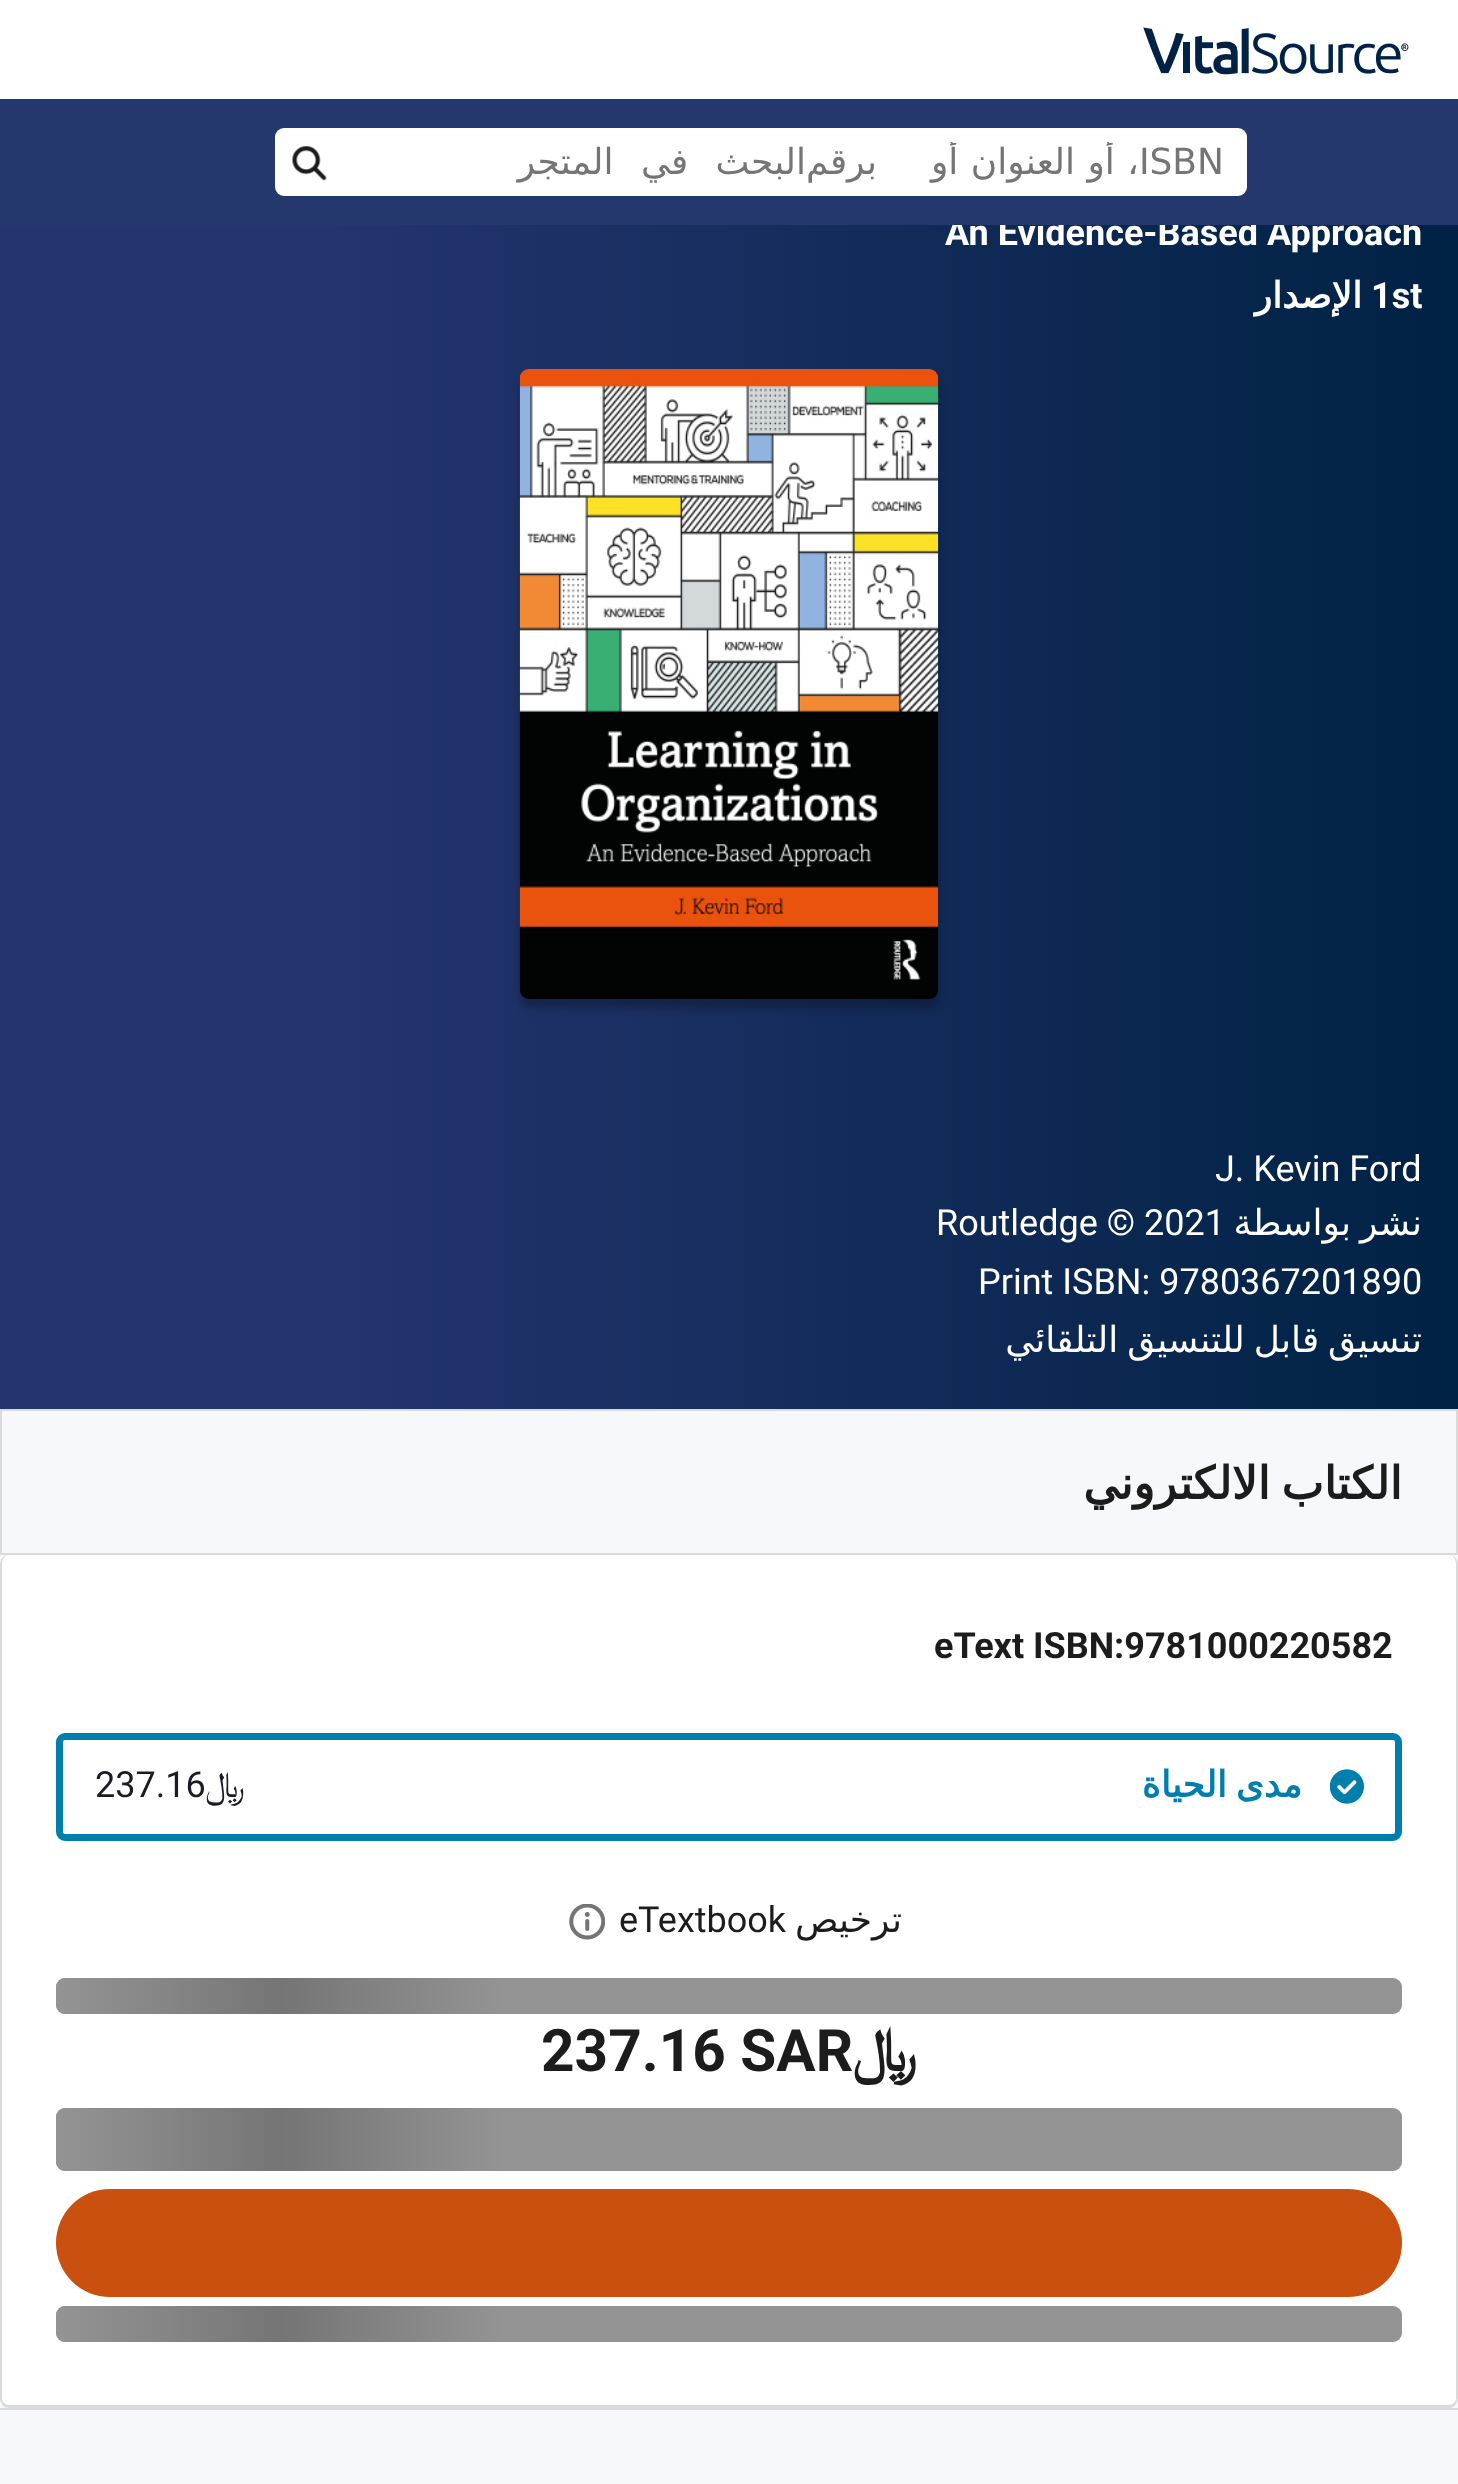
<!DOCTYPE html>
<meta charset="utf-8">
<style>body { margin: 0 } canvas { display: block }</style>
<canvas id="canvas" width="1458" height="2484"></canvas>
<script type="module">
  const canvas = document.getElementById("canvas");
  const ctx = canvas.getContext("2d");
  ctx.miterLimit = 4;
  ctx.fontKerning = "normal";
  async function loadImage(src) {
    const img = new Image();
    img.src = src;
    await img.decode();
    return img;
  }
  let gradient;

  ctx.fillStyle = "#f6f8fc";
  ctx.fillRect(0, 0, 1458, 2484);
  ctx.fillStyle = "#ffffff";
  ctx.fillRect(0, 0, 1458, 99);
  ctx.drawImage(await loadImage("img1.png"), 1143, 27, 266, 48);
  gradient = ctx.createLinearGradient(1458, 718, 0, 718);
  gradient.addColorStop(0, "#002244");
  gradient.addColorStop(0.77, "#24346e");
  ctx.fillStyle = gradient;
  ctx.fillRect(0, 225, 1458, 1184);
  ctx.font = "bold 36px Roboto";
  ctx.fillStyle = "#ffffff";
  ctx.fillText("An Evidence-Based Approach", 945, 245);
  ctx.fillStyle = "#24386e";
  ctx.fillRect(0, 99, 1458, 126);
  ctx.fillStyle = "#ffffff";
  ctx.beginPath();
  ctx.roundRect(275, 128, 972, 68, 9);
  ctx.fill();
  ctx.drawImage(await loadImage("img2.png"), 292, 146, 35, 35);
  ctx.wordSpacing = "16px";
  ctx.direction = "rtl";
  ctx.font = "36px DejaVu Sans";
  ctx.fillStyle = "#757575";
  ctx.fillText("البحث في المتجر", 806, 174);
  ctx.wordSpacing = "0px";
  ctx.fillText("برقم", 877, 174);
  ctx.save();
  ctx.beginPath();
  ctx.rect(347, 142, 877, 43);
  ctx.clip();
  ctx.wordSpacing = "1px";
  ctx.fillText("ISBN، أو العنوان أو", 1224, 174);
  ctx.restore();
  ctx.font = "bold 36px DejaVu Sans";
  ctx.fillStyle = "#ffffff";
  ctx.fillText("الإصدار", 1362, 308);
  ctx.direction = "ltr";
  ctx.font = "bold 36px Roboto";
  ctx.fillText("1st", 1371, 308);
  ctx.fillStyle = "rgba(0, 0, 0, 0.25)";
  ctx.filter = "blur(4.5px)";
  ctx.beginPath();
  ctx.roundRect(520, 378, 418, 630, 9);
  ctx.fill();
  ctx.filter = "none";
  ctx.drawImage(await loadImage("img3.png"), 519, 369, 420, 630);
  ctx.font = "36px Roboto";
  ctx.fillStyle = "#ffffff";
  ctx.fillText("J. Kevin Ford", 1215, 1181);
  ctx.fillText("Routledge © 2021", 936, 1235);
  ctx.wordSpacing = "-2.5px";
  ctx.direction = "rtl";
  ctx.font = "36px DejaVu Sans";
  ctx.fillText("نشر بواسطة", 1422, 1235);
  ctx.wordSpacing = "0px";
  ctx.direction = "ltr";
  ctx.font = "36px Roboto";
  ctx.fillText("Print ISBN: 9780367201890", 978, 1294);
  ctx.wordSpacing = "-2.5px";
  ctx.direction = "rtl";
  ctx.font = "36px DejaVu Sans";
  ctx.fillText("تنسيق قابل للتنسيق التلقائي", 1422, 1352);
  ctx.strokeStyle = "#dadada";
  ctx.lineWidth = 2;
  ctx.strokeRect(1, 1410, 1456, 144);
  ctx.wordSpacing = "-3px";
  ctx.font = "bold 45px DejaVu Sans";
  ctx.fillStyle = "#1c1c1c";
  ctx.fillText("الكتاب الالكتروني", 1402, 1499);
  ctx.fillStyle = "#ffffff";
  ctx.beginPath();
  ctx.roundRect(0, 1555, 1458, 853, 9);
  ctx.fill();
  ctx.fillStyle = "#dadada";
  ctx.beginPath();
  ctx.moveTo(9, 1555);
  ctx.lineTo(1449, 1555);
  ctx.bezierCurveTo(1454, 1555, 1458, 1559, 1458, 1564);
  ctx.lineTo(1458, 2398);
  ctx.bezierCurveTo(1458, 2403, 1454, 2408, 1449, 2408);
  ctx.lineTo(9, 2408);
  ctx.bezierCurveTo(4, 2408, 0, 2403, 0, 2398);
  ctx.lineTo(0, 1564);
  ctx.bezierCurveTo(0, 1559, 4, 1555, 9, 1555);
  ctx.closePath();
  ctx.moveTo(9, 1555);
  ctx.lineTo(1449, 1555);
  ctx.bezierCurveTo(1453, 1555, 1456, 1559, 1456, 1564);
  ctx.lineTo(1456, 2398);
  ctx.bezierCurveTo(1456, 2402, 1453, 2405, 1449, 2405);
  ctx.lineTo(9, 2405);
  ctx.bezierCurveTo(5, 2405, 2, 2402, 2, 2398);
  ctx.lineTo(2, 1564);
  ctx.bezierCurveTo(2, 1559, 5, 1555, 9, 1555);
  ctx.closePath();
  ctx.fill("evenodd");
  ctx.wordSpacing = "0px";
  ctx.direction = "ltr";
  ctx.font = "bold 36px Roboto";
  ctx.fillStyle = "#1c1c1c";
  ctx.fillText("eText ISBN:9781000220582", 934, 1658);
  ctx.beginPath();
  ctx.roundRect(59.5, 1736.5, 1339, 101, 5.5);
  ctx.strokeStyle = "#007fad";
  ctx.lineWidth = 7;
  ctx.stroke();
  ctx.font = "36px Roboto";
  ctx.fillStyle = "#1b1b26";
  ctx.fillText("237.16", 95, 1797);
  ctx.direction = "rtl";
  ctx.font = "36px FreeSerif";
  ctx.fillText("﷼", 245, 1797);
  ctx.wordSpacing = "-2.5px";
  ctx.font = "bold 36px DejaVu Sans";
  ctx.fillStyle = "#007fad";
  ctx.fillText("مدى الحياة", 1302, 1797);
  ctx.drawImage(await loadImage("img4.png"), 1330, 1769, 34, 35);
  ctx.drawImage(await loadImage("img5.png"), 569, 1904, 36, 36);
  ctx.wordSpacing = "0px";
  ctx.direction = "ltr";
  ctx.font = "36px Roboto";
  ctx.fillStyle = "#1c1c1c";
  ctx.fillText("eTextbook", 619, 1932);
  ctx.direction = "rtl";
  ctx.font = "36px DejaVu Sans";
  ctx.fillText("ترخيص", 902, 1932);
  ctx.fillStyle = "#949494";
  ctx.beginPath();
  ctx.roundRect(56, 1978, 1346, 36, 9);
  ctx.fill();
  gradient = ctx.createLinearGradient(56, 1996, 506, 1996);
  gradient.addColorStop(0, "#949494");
  gradient.addColorStop(0.5, "#757575");
  gradient.addColorStop(1, "#949494");
  ctx.fillStyle = gradient;
  ctx.beginPath();
  ctx.roundRect(56, 1978, 450, 36, [9, 0, 0, 9]);
  ctx.fill();
  ctx.direction = "ltr";
  ctx.font = "bold 58.5px Roboto";
  ctx.fillStyle = "#1c1c1c";
  ctx.fillText("237.16 SAR", 541, 2071);
  ctx.direction = "rtl";
  ctx.font = "bold 58.5px FreeSerif";
  ctx.fillText("﷼", 917, 2071);
  ctx.fillStyle = "#949494";
  ctx.beginPath();
  ctx.roundRect(56, 2108, 1346, 63, 9);
  ctx.fill();
  gradient = ctx.createLinearGradient(56, 2140, 506, 2140);
  gradient.addColorStop(0, "#949494");
  gradient.addColorStop(0.5, "#757575");
  gradient.addColorStop(1, "#949494");
  ctx.fillStyle = gradient;
  ctx.beginPath();
  ctx.roundRect(56, 2108, 450, 63, [9, 0, 0, 9]);
  ctx.fill();
  ctx.fillStyle = "#ca500f";
  ctx.beginPath();
  ctx.roundRect(56, 2189, 1346, 108, 54);
  ctx.fill();
  ctx.fillStyle = "#949494";
  ctx.beginPath();
  ctx.roundRect(56, 2306, 1346, 36, 9);
  ctx.fill();
  gradient = ctx.createLinearGradient(56, 2324, 506, 2324);
  gradient.addColorStop(0, "#949494");
  gradient.addColorStop(0.5, "#757575");
  gradient.addColorStop(1, "#949494");
  ctx.fillStyle = gradient;
  ctx.beginPath();
  ctx.roundRect(56, 2306, 450, 36, [9, 0, 0, 9]);
  ctx.fill();
  ctx.fillStyle = "#dadada";
  ctx.fillRect(0, 2408, 1458, 2);
</script>
